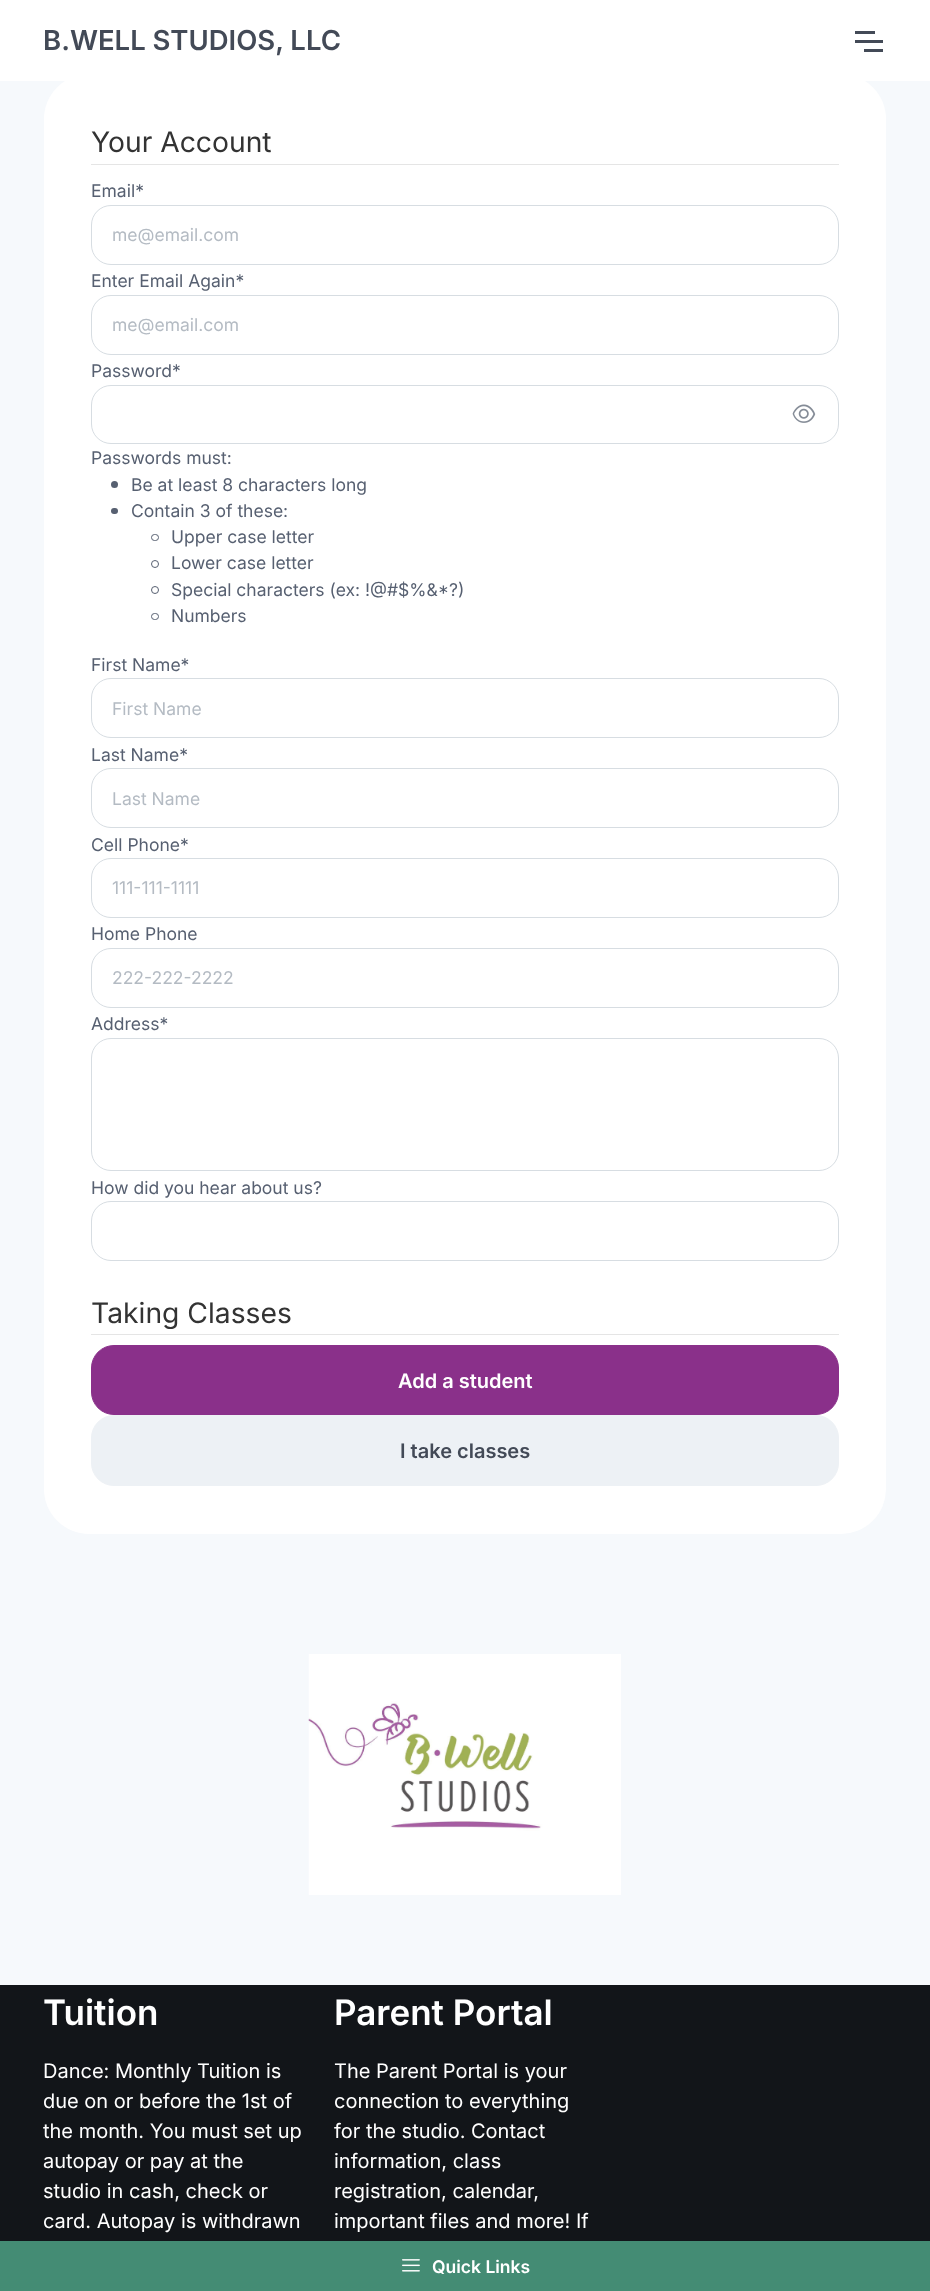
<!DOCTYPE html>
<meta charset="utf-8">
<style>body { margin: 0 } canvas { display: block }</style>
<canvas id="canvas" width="930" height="2291"></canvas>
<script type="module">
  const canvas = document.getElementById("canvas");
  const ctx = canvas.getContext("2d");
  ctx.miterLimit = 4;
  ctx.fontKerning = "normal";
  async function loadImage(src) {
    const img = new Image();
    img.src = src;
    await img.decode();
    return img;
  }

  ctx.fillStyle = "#f6f9fc";
  ctx.fillRect(0, 0, 930, 2291);
  ctx.fillStyle = "#ffffff";
  ctx.beginPath();
  ctx.roundRect(44, 74, 842, 1460, 45);
  ctx.fill();
  ctx.fillRect(0, 0, 930, 81);
  ctx.font = "600 27.5px Inter";
  ctx.fillStyle = "#434a57";
  ctx.fillText("B.WELL STUDIOS, LLC", 43, 50);
  ctx.fillRect(855, 40, 28, 3);
  ctx.fillRect(855, 31, 20, 3);
  ctx.fillRect(864, 49, 19, 3);
  ctx.fillStyle = "#e5e5e5";
  ctx.fillRect(91, 164, 748, 1);
  ctx.font = "28.25px Inter";
  ctx.fillStyle = "#333333";
  ctx.fillText("Your Account", 91, 152);
  ctx.font = "17.5px Inter";
  ctx.fillStyle = "#576071";
  ctx.fillText("Email*", 91, 197);
  ctx.beginPath();
  ctx.roundRect(91.5, 205.5, 747, 59, 19.5);
  ctx.strokeStyle = "#d7dde2";
  ctx.stroke();
  ctx.fillStyle = "#b4bbc3";
  ctx.fillText("me@email.com", 112, 241);
  ctx.fillStyle = "#576071";
  ctx.fillText("Enter Email Again*", 91, 287);
  ctx.beginPath();
  ctx.roundRect(91.5, 295.5, 747, 59, 19.5);
  ctx.stroke();
  ctx.fillStyle = "#b4bbc3";
  ctx.fillText("me@email.com", 112, 331);
  ctx.fillStyle = "#576071";
  ctx.fillText("Password*", 91, 377);
  ctx.beginPath();
  ctx.roundRect(91.5, 385.5, 747, 58, 19.5);
  ctx.stroke();
  ctx.drawImage(await loadImage("img1.png"), 792, 404, 24, 19);
  ctx.fillText("Passwords must:", 91, 464);
  ctx.beginPath();
  ctx.arc(114.5, 484.5, 3.5, 0, Math.PI * 2);
  ctx.fill();
  ctx.fillText("Be at least 8 characters long", 131, 491);
  ctx.beginPath();
  ctx.roundRect(111, 508, 7, 6, 3);
  ctx.fill();
  ctx.fillText("Contain 3 of these:", 131, 517);
  ctx.beginPath();
  ctx.roundRect(151.5, 534.5, 7, 6, 3);
  ctx.strokeStyle = "#576071";
  ctx.stroke();
  ctx.fillText("Upper case letter", 171, 543);
  ctx.beginPath();
  ctx.arc(155, 564, 3.5, 0, Math.PI * 2);
  ctx.stroke();
  ctx.fillText("Lower case letter", 171, 569);
  ctx.beginPath();
  ctx.arc(155, 590, 3.5, 0, Math.PI * 2);
  ctx.stroke();
  ctx.fillText("Special characters (ex: !@#$%&*?)", 171, 596);
  ctx.beginPath();
  ctx.roundRect(151.5, 613.5, 7, 6, 3);
  ctx.stroke();
  ctx.fillText("Numbers", 171, 622);
  ctx.fillText("First Name*", 91, 671);
  ctx.beginPath();
  ctx.roundRect(91.5, 678.5, 747, 59, 19.5);
  ctx.strokeStyle = "#d7dde2";
  ctx.stroke();
  ctx.fillStyle = "#b4bbc3";
  ctx.fillText("First Name", 112, 715);
  ctx.fillStyle = "#576071";
  ctx.fillText("Last Name*", 91, 761);
  ctx.beginPath();
  ctx.roundRect(91.5, 768.5, 747, 59, 19.5);
  ctx.stroke();
  ctx.fillStyle = "#b4bbc3";
  ctx.fillText("Last Name", 112, 805);
  ctx.fillStyle = "#576071";
  ctx.fillText("Cell Phone*", 91, 851);
  ctx.beginPath();
  ctx.roundRect(91.5, 858.5, 747, 59, 19.5);
  ctx.stroke();
  ctx.fillStyle = "#b4bbc3";
  ctx.fillText("111-111-1111", 112, 894);
  ctx.fillStyle = "#576071";
  ctx.fillText("Home Phone", 91, 940);
  ctx.beginPath();
  ctx.roundRect(91.5, 948.5, 747, 59, 19.5);
  ctx.stroke();
  ctx.fillStyle = "#b4bbc3";
  ctx.fillText("222-222-2222", 112, 984);
  ctx.fillStyle = "#576071";
  ctx.fillText("Address*", 91, 1030);
  ctx.beginPath();
  ctx.roundRect(91.5, 1038.5, 747, 132, 19.5);
  ctx.stroke();
  ctx.fillText("How did you hear about us?", 91, 1194);
  ctx.beginPath();
  ctx.roundRect(91.5, 1201.5, 747, 59, 19.5);
  ctx.stroke();
  ctx.fillStyle = "#e5e5e5";
  ctx.fillRect(91, 1334, 748, 1);
  ctx.font = "28.25px Inter";
  ctx.fillStyle = "#333333";
  ctx.fillText("Taking Classes", 91, 1323);
  ctx.fillStyle = "#8a308a";
  ctx.beginPath();
  ctx.roundRect(91.5, 1345.5, 747, 69, 22.5);
  ctx.fill();
  ctx.strokeStyle = "#8a308a";
  ctx.stroke();
  ctx.font = "600 20px Inter";
  ctx.fillStyle = "#ffffff";
  ctx.fillText("Add a student", 398, 1388);
  ctx.fillStyle = "#edf1f5";
  ctx.beginPath();
  ctx.roundRect(91.5, 1415.5, 747, 70, 22.5);
  ctx.fill();
  ctx.strokeStyle = "#edf1f5";
  ctx.stroke();
  ctx.fillStyle = "#434a57";
  ctx.fillText("I take classes", 400, 1458);
  ctx.drawImage(await loadImage("img2.png"), 308, 1654, 313, 241);
  ctx.fillStyle = "#448c74";
  ctx.fillRect(0, 2241, 930, 50);
  ctx.drawImage(await loadImage("img3.png"), 402, 2259, 18, 13);
  ctx.font = "600 17.5px Inter";
  ctx.fillStyle = "#ffffff";
  ctx.fillText("Quick Links", 432, 2273);
  ctx.fillStyle = "#121519";
  ctx.fillRect(0, 1985, 930, 256);
  ctx.font = "600 35px Inter";
  ctx.fillStyle = "#ffffff";
  ctx.fillText("Tuition", 43, 2025);
  ctx.font = "20px Inter";
  ctx.fillText("Dance: Monthly Tuition is", 43, 2078);
  ctx.fillText("due on or before the 1st of", 43, 2108);
  ctx.fillText("the month. You must set up", 43, 2138);
  ctx.fillText("autopay or pay at the", 43, 2168);
  ctx.fillText("studio in cash, check or", 43, 2198);
  ctx.fillText("card. Autopay is withdrawn", 43, 2228);
  ctx.font = "600 35px Inter";
  ctx.fillText("Parent Portal", 334, 2025);
  ctx.font = "20px Inter";
  ctx.fillText("The Parent Portal is your", 334, 2078);
  ctx.fillText("connection to everything", 334, 2108);
  ctx.fillText("for the studio. Contact", 334, 2138);
  ctx.fillText("information, class", 334, 2168);
  ctx.fillText("registration, calendar,", 334, 2198);
  ctx.fillText("important files and more! If", 334, 2228);
</script>
